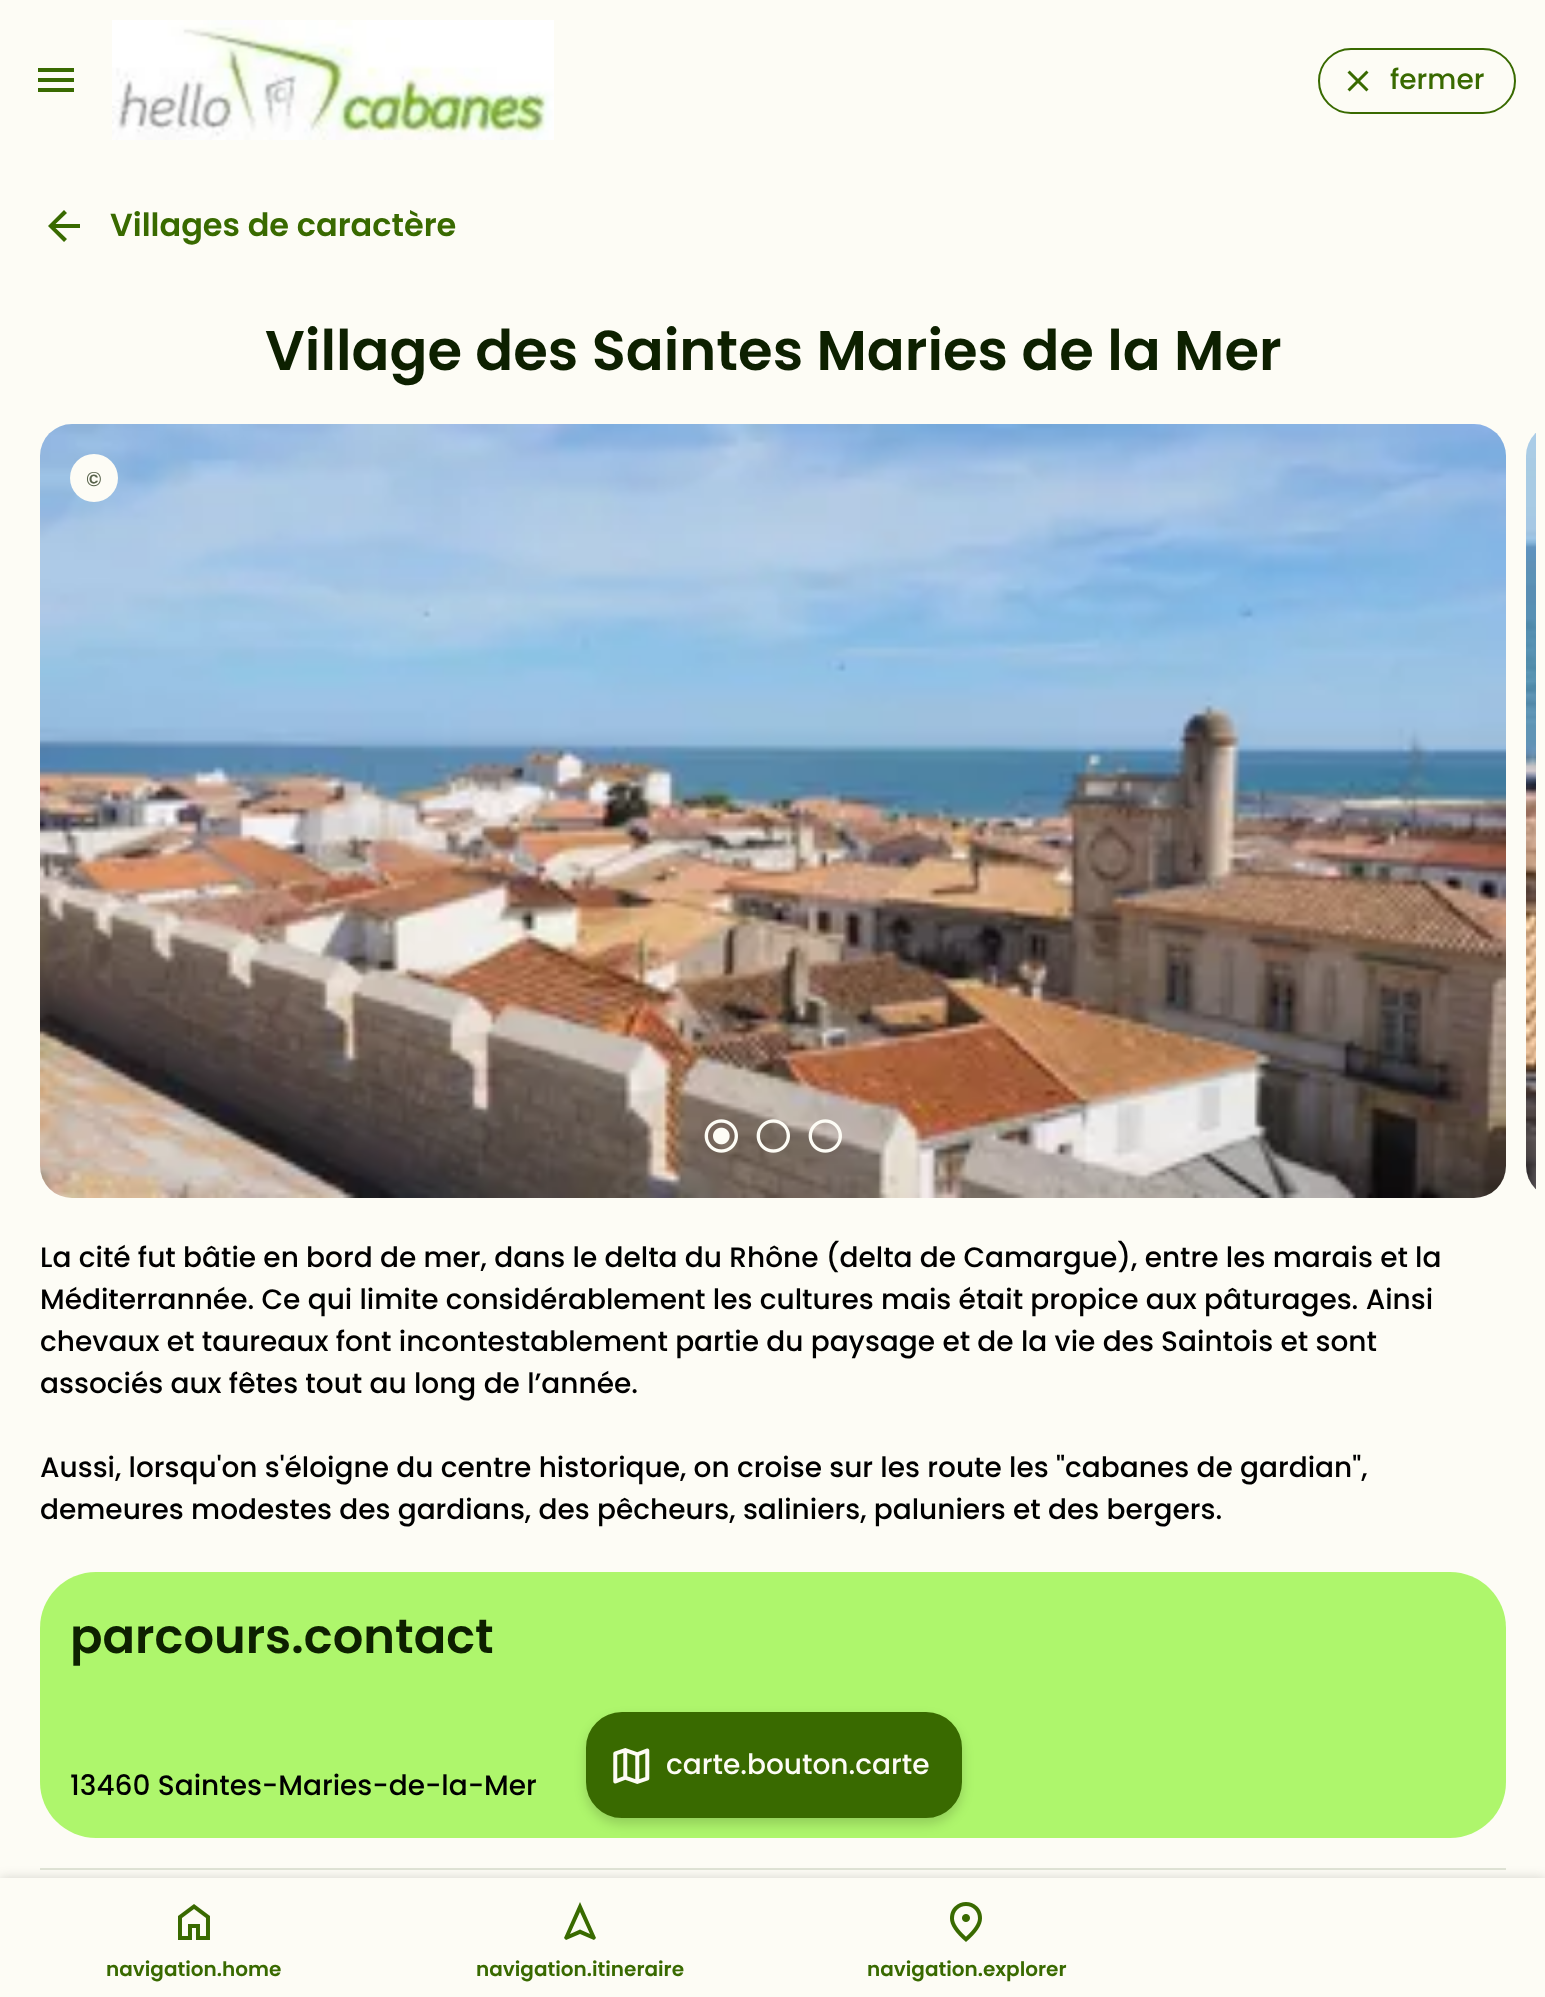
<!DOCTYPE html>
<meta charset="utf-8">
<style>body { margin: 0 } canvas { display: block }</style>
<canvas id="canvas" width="1545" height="1997"></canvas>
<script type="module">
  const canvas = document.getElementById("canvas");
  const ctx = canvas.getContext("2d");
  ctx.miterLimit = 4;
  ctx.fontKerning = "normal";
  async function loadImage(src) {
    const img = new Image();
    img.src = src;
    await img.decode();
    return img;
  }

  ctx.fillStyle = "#fdfcf5";
  ctx.fillRect(0, 0, 1545, 1997);
  ctx.fillStyle = "#396a00";
  ctx.beginPath();
  ctx.moveTo(38, 92);
  ctx.lineTo(38, 88);
  ctx.lineTo(74, 88);
  ctx.lineTo(74, 92);
  ctx.closePath();
  ctx.moveTo(38, 82);
  ctx.lineTo(38, 78);
  ctx.lineTo(74, 78);
  ctx.lineTo(74, 82);
  ctx.closePath();
  ctx.moveTo(38, 72);
  ctx.lineTo(38, 68);
  ctx.lineTo(74, 68);
  ctx.lineTo(74, 72);
  ctx.closePath();
  ctx.fill();
  ctx.drawImage(await loadImage("img1.png"), 112, 20, 442, 120);
  ctx.beginPath();
  ctx.roundRect(1319, 49, 196, 64, 32);
  ctx.strokeStyle = "#396a00";
  ctx.lineWidth = 2;
  ctx.stroke();
  ctx.drawImage(await loadImage("img2.png"), 1347, 70, 22, 22);
  ctx.font = "500 28px Poppins";
  ctx.fillText("fermer", 1390, 89);
  ctx.beginPath();
  ctx.moveTo(55.5, 228);
  ctx.lineTo(67, 239);
  ctx.lineTo(64, 242);
  ctx.lineTo(48, 226);
  ctx.lineTo(64, 210);
  ctx.lineTo(67, 213);
  ctx.lineTo(55.5, 224);
  ctx.lineTo(80, 224);
  ctx.lineTo(80, 228);
  ctx.closePath();
  ctx.fill();
  ctx.font = "600 32px Poppins";
  ctx.fillText("Villages de caractère", 110, 236);
  ctx.font = "600 56px Poppins";
  ctx.fillStyle = "#0d2000";
  ctx.fillText("Village des Saintes Maries de la Mer", 265, 370);
  ctx.drawImage(await loadImage("img3.png"), 40, 424, 1466, 774);
  ctx.fillStyle = "#fdfcf5";
  ctx.beginPath();
  ctx.arc(94, 478, 24, 0, Math.PI * 2);
  ctx.fill();
  ctx.font = "500 20px Poppins";
  ctx.fillStyle = "#57624a";
  ctx.fillText("©", 86, 486);
  ctx.drawImage(await loadImage("img4.png"), 1526, 433, 10, 757);
  ctx.drawImage(await loadImage("img5.png"), 704, 1119, 34, 34);
  ctx.drawImage(await loadImage("img6.png"), 756, 1119, 34, 34);
  ctx.drawImage(await loadImage("img7.png"), 808, 1119, 34, 34);
  ctx.font = "500 28px Poppins";
  ctx.fillStyle = "#000000";
  ctx.fillText("La cité fut bâtie en bord de mer, dans le delta du Rhône (delta de Camargue), entre les marais et la", 40, 1267);
  ctx.fillText("Méditerrannée. Ce qui limite considérablement les cultures mais était propice aux pâturages. Ainsi", 40, 1309);
  ctx.fillText("chevaux et taureaux font incontestablement partie du paysage et de la vie des Saintois et sont", 40, 1351);
  ctx.fillText("associés aux fêtes tout au long de l’année.", 40, 1393);
  ctx.fillText("Aussi, lorsqu'on s'éloigne du centre historique, on croise sur les route les \"cabanes de gardian\",", 40, 1477);
  ctx.fillText("demeures modestes des gardians, des pêcheurs, saliniers, paluniers et des bergers.", 40, 1519);
  ctx.fillStyle = "#aef66c";
  ctx.beginPath();
  ctx.roundRect(40, 1572, 1466, 266, 56);
  ctx.fill();
  ctx.font = "600 48px Poppins";
  ctx.fillStyle = "#0d2000";
  ctx.fillText("parcours.contact", 70, 1653);
  ctx.font = "500 28px Poppins";
  ctx.fillStyle = "#000000";
  ctx.fillText("13460 Saintes-Maries-de-la-Mer", 70, 1795);
  ctx.fillStyle = "#e0e4d6";
  ctx.fillRect(40, 1868, 1466, 2);
  ctx.fillStyle = "rgba(0, 0, 0, 0.16)";
  ctx.filter = "blur(6px)";
  ctx.beginPath();
  ctx.roundRect(586, 1718, 376, 106, 36);
  ctx.fill();
  ctx.filter = "none";
  ctx.fillStyle = "#396a00";
  ctx.beginPath();
  ctx.roundRect(587, 1713, 374, 104, 35);
  ctx.fill();
  ctx.stroke();
  ctx.drawImage(await loadImage("img8.png"), 613, 1748, 37, 36);
  ctx.fillStyle = "#fdfcf5";
  ctx.fillText("carte.bouton.carte", 666, 1774);
  ctx.fillStyle = "rgba(0, 0, 0, 0.16)";
  ctx.filter = "blur(6px)";
  ctx.beginPath();
  ctx.rect(0, 1878, 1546, 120);
  ctx.fill();
  ctx.filter = "none";
  ctx.fillStyle = "#fdfcf5";
  ctx.fillRect(0, 1878, 1545, 119);
  ctx.drawImage(await loadImage("img9.png"), 178, 1904, 32, 36);
  ctx.font = "600 20px Poppins";
  ctx.fillStyle = "#396a00";
  ctx.fillText("navigation.home", 106, 1976);
  ctx.beginPath();
  ctx.moveTo(566, 1940);
  ctx.lineTo(564, 1938);
  ctx.lineTo(580, 1902);
  ctx.lineTo(596, 1938);
  ctx.lineTo(594, 1940);
  ctx.lineTo(580, 1934);
  ctx.closePath();
  ctx.moveTo(570, 1934);
  ctx.lineTo(580, 1929.5);
  ctx.lineTo(590, 1934);
  ctx.lineTo(580, 1912);
  ctx.closePath();
  ctx.moveTo(580, 1929.5);
  ctx.lineTo(580, 1929.5);
  ctx.closePath();
  ctx.fill();
  ctx.fillText("navigation.itineraire", 476, 1976);
  ctx.drawImage(await loadImage("img10.png"), 950, 1902, 32, 40);
  ctx.fillText("navigation.explorer", 867, 1976);
</script>
